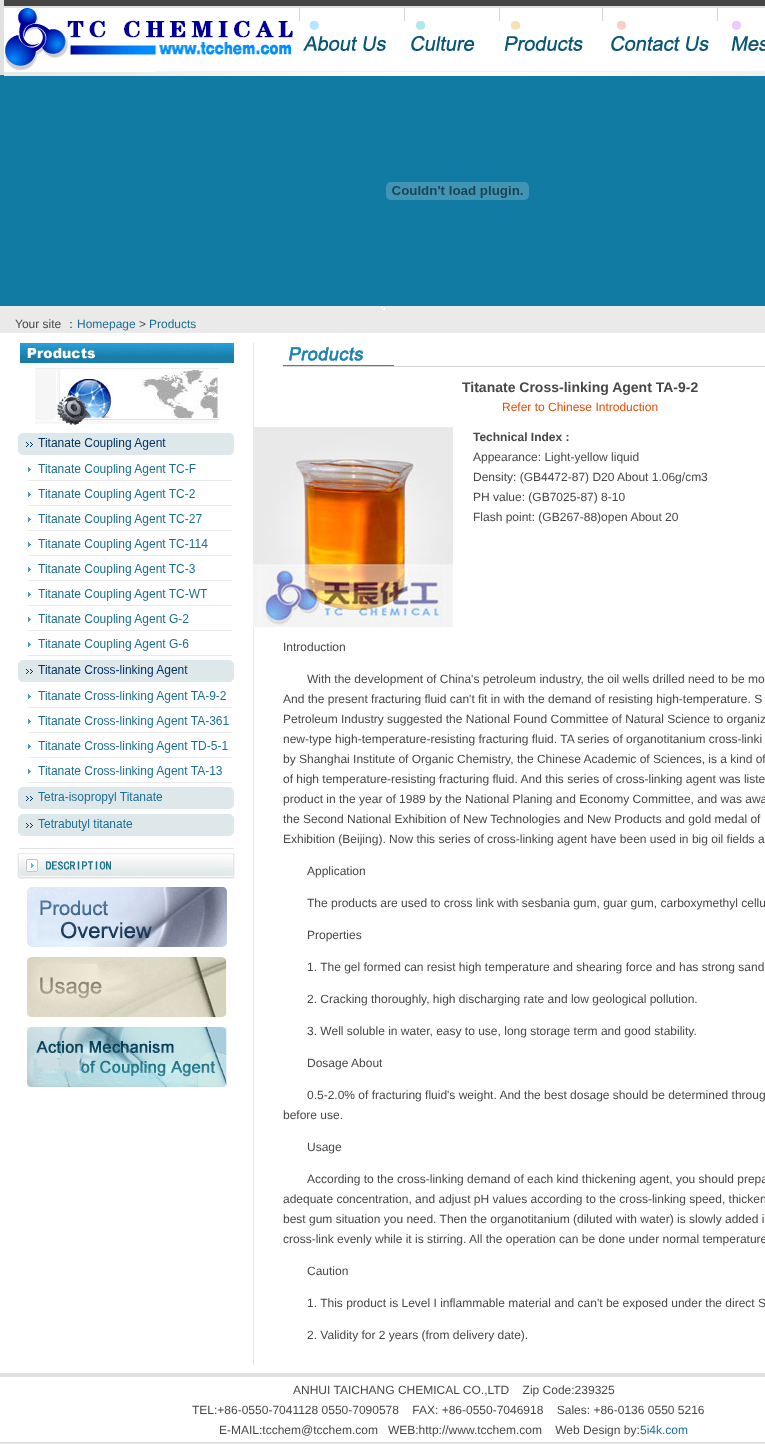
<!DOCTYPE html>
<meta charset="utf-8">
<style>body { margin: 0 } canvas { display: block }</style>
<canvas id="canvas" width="765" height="1444"></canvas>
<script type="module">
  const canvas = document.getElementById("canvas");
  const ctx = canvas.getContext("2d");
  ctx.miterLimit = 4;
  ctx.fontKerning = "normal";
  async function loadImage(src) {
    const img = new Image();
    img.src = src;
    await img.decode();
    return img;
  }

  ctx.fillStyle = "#117ba3";
  ctx.fillRect(0, 0, 765, 1444);
  ctx.fillStyle = "#e1e1e1";
  ctx.fillRect(0, 0, 765, 75);
  ctx.fillStyle = "#454545";
  ctx.fillRect(4, 0, 761, 6);
  ctx.fillStyle = "#ffffff";
  ctx.fillRect(293, 8, 472, 63);
  ctx.drawImage(await loadImage("img1.png"), 4, 8, 289, 63);
  ctx.drawImage(await loadImage("img2.png"), 299, 8, 87, 43);
  ctx.drawImage(await loadImage("img3.png"), 404, 8, 71, 43);
  ctx.drawImage(await loadImage("img4.png"), 499, 8, 84, 43);
  ctx.drawImage(await loadImage("img5.png"), 602, 8, 107, 43);
  ctx.drawImage(await loadImage("img6.png"), 717, 8, 48, 43);
  ctx.drawImage(await loadImage("img7.png"), 4, 71, 761, 5);
  ctx.drawImage(await loadImage("img8.png"), 386, 182, 143, 18);
  ctx.fillStyle = "#eaeaea";
  ctx.fillRect(0, 306, 765, 27);
  ctx.drawImage(await loadImage("img9.png"), 381, 306, 4, 4);
  ctx.font = "12px Liberation Sans";
  ctx.fillStyle = "#474747";
  ctx.fillText("Your site", 15, 328);
  ctx.font = "500 12px WenQuanYi Zen Hei";
  ctx.fillText("：", 65, 328);
  ctx.font = "12px Liberation Sans";
  ctx.fillStyle = "#1b6f94";
  ctx.fillText("Homepage", 77, 328);
  ctx.fillStyle = "#474747";
  ctx.fillText(">", 139, 328);
  ctx.fillStyle = "#1b6f94";
  ctx.fillText("Products", 149, 328);
  ctx.fillStyle = "#ffffff";
  ctx.fillRect(0, 333, 765, 1109);
  ctx.fillStyle = "#e6e6e6";
  ctx.fillRect(253, 343, 1, 1022);
  ctx.drawImage(await loadImage("img10.png"), 17, 343, 218, 744);
  ctx.drawImage(await loadImage("img11.png"), 283, 347, 482, 20);
  ctx.font = "bold 14px Liberation Sans";
  ctx.fillStyle = "#474747";
  ctx.fillText("Titanate Cross-linking Agent TA-9-2", 462, 392);
  ctx.font = "12px Liberation Sans";
  ctx.fillStyle = "#e94b01";
  ctx.fillText("Refer to Chinese Introduction", 502, 411);
  ctx.drawImage(await loadImage("img12.png"), 253, 427, 200, 200);
  ctx.font = "bold 12px Liberation Sans";
  ctx.fillStyle = "#474747";
  ctx.fillText("Technical Index :", 473, 441);
  ctx.font = "12px Liberation Sans";
  ctx.fillText("Appearance: Light-yellow liquid", 473, 461);
  ctx.fillText("Density: (GB4472-87) D20 About 1.06g/cm3", 473, 481);
  ctx.fillText("PH value: (GB7025-87) 8-10", 473, 501);
  ctx.fillText("Flash point: (GB267-88)open About 20", 473, 521);
  ctx.fillText("Introduction", 283, 651);
  ctx.fillText("With the development of China's petroleum industry, the oil wells drilled need to be mo", 307, 683);
  ctx.fillText("And the present fracturing fluid can't fit in with the demand of resisting high-temperature. S", 283, 703);
  ctx.fillText("Petroleum Industry suggested the National Found Committee of Natural Science to organiz", 283, 723);
  ctx.fillText("new-type high-temperature-resisting fracturing fluid. TA series of organotitanium cross-linki", 283, 743);
  ctx.fillText("by Shanghai Institute of Organic Chemistry, the Chinese Academic of Sciences, is a kind of", 283, 763);
  ctx.fillText("of high temperature-resisting fracturing fluid. And this series of cross-linking agent was liste", 283, 783);
  ctx.fillText("product in the year of 1989 by the National Planing and Economy Committee, and was awa", 283, 803);
  ctx.fillText("the Second National Exhibition of New Technologies and New Products and gold medal of", 283, 823);
  ctx.fillText("Exhibition (Beijing). Now this series of cross-linking agent have been used in big oil fields a", 283, 843);
  ctx.fillText("Application", 307, 875);
  ctx.fillText("The products are used to cross link with sesbania gum, guar gum, carboxymethyl cellu", 307, 907);
  ctx.fillText("Properties", 307, 939);
  ctx.fillText("1. The gel formed can resist high temperature and shearing force and has strong sand", 307, 971);
  ctx.fillText("2. Cracking thoroughly, high discharging rate and low geological pollution.", 307, 1003);
  ctx.fillText("3. Well soluble in water, easy to use, long storage term and good stability.", 307, 1035);
  ctx.fillText("Dosage About", 307, 1067);
  ctx.fillText("0.5-2.0% of fracturing fluid's weight. And the best dosage should be determined throug", 307, 1099);
  ctx.fillText("before use.", 283, 1119);
  ctx.fillText("Usage", 307, 1151);
  ctx.fillText("According to the cross-linking demand of each kind thickening agent, you should prepa", 307, 1183);
  ctx.fillText("adequate concentration, and adjust pH values according to the cross-linking speed, thicken", 283, 1203);
  ctx.fillText("best gum situation you need. Then the organotitanium (diluted with water) is slowly added i", 283, 1223);
  ctx.fillText("cross-link evenly while it is stirring. All the operation can be done under normal temperature", 283, 1243);
  ctx.fillText("Caution", 307, 1275);
  ctx.fillText("1. This product is Level I inflammable material and can't be exposed under the direct S", 307, 1307);
  ctx.fillText("2. Validity for 2 years (from delivery date).", 307, 1339);
  ctx.fillStyle = "#e1e1e1";
  ctx.fillRect(0, 1373, 765, 4);
  ctx.fillStyle = "#474747";
  ctx.fillText("ANHUI TAICHANG CHEMICAL CO.,LTD    Zip Code:239325", 293, 1394);
  ctx.fillText("TEL:+86-0550-7041128 0550-7090578    FAX: +86-0550-7046918    Sales: +86-0136 0550 5216", 192, 1414);
  ctx.fillText("E-MAIL:tcchem@tcchem.com   WEB:http://www.tcchem.com    Web Design by:", 219, 1434);
  ctx.fillStyle = "#1b6f94";
  ctx.fillText("5i4k.com", 640, 1434);
  ctx.fillStyle = "#e1e1e1";
  ctx.fillRect(0, 1442, 765, 2);
</script>
